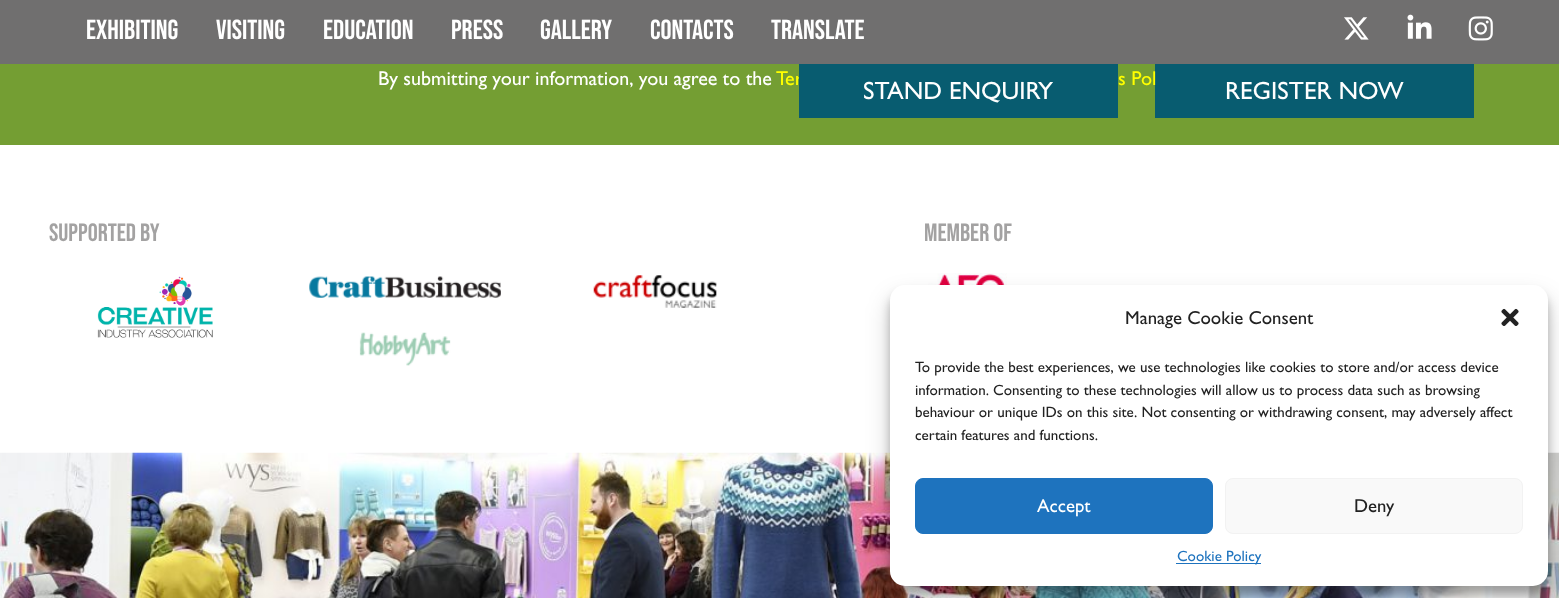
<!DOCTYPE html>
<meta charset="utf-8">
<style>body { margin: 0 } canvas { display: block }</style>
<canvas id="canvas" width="1559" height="598"></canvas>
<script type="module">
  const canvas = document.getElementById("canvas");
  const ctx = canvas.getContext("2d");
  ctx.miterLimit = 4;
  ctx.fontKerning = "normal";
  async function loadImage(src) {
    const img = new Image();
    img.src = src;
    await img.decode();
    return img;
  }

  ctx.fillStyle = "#ffffff";
  ctx.fillRect(0, 0, 1559, 598);
  ctx.fillStyle = "#706f6f";
  ctx.fillRect(0, 0, 1559, 64);
  ctx.font = "27.5px Bebas Neue";
  ctx.fillStyle = "#ffffff";
  ctx.fillText("Exhibiting", 86, 39);
  ctx.fillText("Visiting", 216, 39);
  ctx.fillText("Education", 323, 39);
  ctx.fillText("Press", 451, 39);
  ctx.fillText("Gallery", 540, 39);
  ctx.fillText("Contacts", 650, 39);
  ctx.fillText("Translate", 771, 39);
  ctx.drawImage(await loadImage("img1.png"), 1344, 17, 25, 23);
  ctx.drawImage(await loadImage("img2.png"), 1407, 14, 25, 25);
  ctx.drawImage(await loadImage("img3.png"), 1468, 16, 25, 25);
  ctx.fillStyle = "#749e33";
  ctx.fillRect(0, 64, 1559, 81);
  ctx.wordSpacing = "-1px";
  ctx.font = "20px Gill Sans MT";
  ctx.fillStyle = "#ffff00";
  ctx.fillText("Ter", 776, 85);
  ctx.fillStyle = "#085c70";
  ctx.fillRect(799, 64, 319, 54);
  ctx.wordSpacing = "0px";
  ctx.font = "25px Gill Sans MT";
  ctx.fillStyle = "#ffffff";
  ctx.fillText("STAND ENQUIRY", 863, 99);
  ctx.fillStyle = "#085c70";
  ctx.fillRect(1155, 64, 319, 54);
  ctx.fillStyle = "#ffffff";
  ctx.fillText("REGISTER NOW", 1225, 99);
  ctx.wordSpacing = "-0.25px";
  ctx.font = "20px Gill Sans MT";
  ctx.fillText("By submitting your information, you agree to the", 378, 85);
  ctx.wordSpacing = "0px";
  ctx.fillStyle = "#ffff00";
  ctx.fillText("s Pol", 1118, 85);
  ctx.font = "25px Bebas Neue";
  ctx.fillStyle = "#a3a2a2";
  ctx.fillText("SUPPORTED BY", 49, 241);
  ctx.drawImage(await loadImage("img4.png"), 97, 276, 116, 62);
  ctx.drawImage(await loadImage("img5.png"), 309, 276, 192, 22);
  ctx.drawImage(await loadImage("img6.png"), 593, 275, 124, 33);
  ctx.drawImage(await loadImage("img7.png"), 359, 332, 92, 34);
  ctx.fillText("MEMBER OF", 924, 241);
  ctx.drawImage(await loadImage("img8.png"), 928, 273, 79, 12);
  ctx.drawImage(await loadImage("img10.png"), 0, 452, 1559, 146);
  ctx.fillStyle = "rgba(0, 0, 0, 0.23)";
  ctx.filter = "blur(4px)";
  ctx.beginPath();
  ctx.roundRect(890, 293, 658, 301, 15);
  ctx.fill();
  ctx.filter = "none";
  ctx.fillStyle = "rgba(0, 0, 0, 0.19)";
  ctx.filter = "blur(12.5px)";
  ctx.beginPath();
  ctx.roundRect(890, 298, 658, 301, 15);
  ctx.fill();
  ctx.filter = "none";
  ctx.fillStyle = "#ffffff";
  ctx.beginPath();
  ctx.roundRect(890, 285, 658, 301, 15);
  ctx.fill();
  ctx.font = "18.75px Gill Sans MT";
  ctx.fillStyle = "#222222";
  ctx.fillText("Manage Cookie Consent", 1125, 324);
  ctx.drawImage(await loadImage("img9.png"), 1501, 308, 18, 18);
  ctx.font = "15px Gill Sans MT";
  ctx.fillText("To provide the best experiences, we use technologies like cookies to store and/or access device", 915, 372);
  ctx.fillText("information. Consenting to these technologies will allow us to process data such as browsing", 915, 395);
  ctx.fillText("behaviour or unique IDs on this site. Not consenting or withdrawing consent, may adversely affect", 915, 417);
  ctx.fillText("certain features and functions.", 915, 440);
  ctx.fillStyle = "#1e73be";
  ctx.beginPath();
  ctx.roundRect(915.5, 478.5, 297, 55, 7.5);
  ctx.fill();
  ctx.strokeStyle = "#1e73be";
  ctx.stroke();
  ctx.font = "18.75px Gill Sans MT";
  ctx.fillStyle = "#ffffff";
  ctx.fillText("Accept", 1037, 512);
  ctx.fillStyle = "#f9f9f9";
  ctx.beginPath();
  ctx.roundRect(1225.5, 478.5, 297, 55, 7.5);
  ctx.fill();
  ctx.strokeStyle = "#f2f2f2";
  ctx.stroke();
  ctx.fillStyle = "#222222";
  ctx.fillText("Deny", 1354, 512);
  ctx.fillStyle = "#1e73be";
  ctx.fillRect(1176, 563, 85, 1);
  ctx.font = "15px Gill Sans MT";
  ctx.fillText("Cookie Policy", 1177, 561);
</script>
